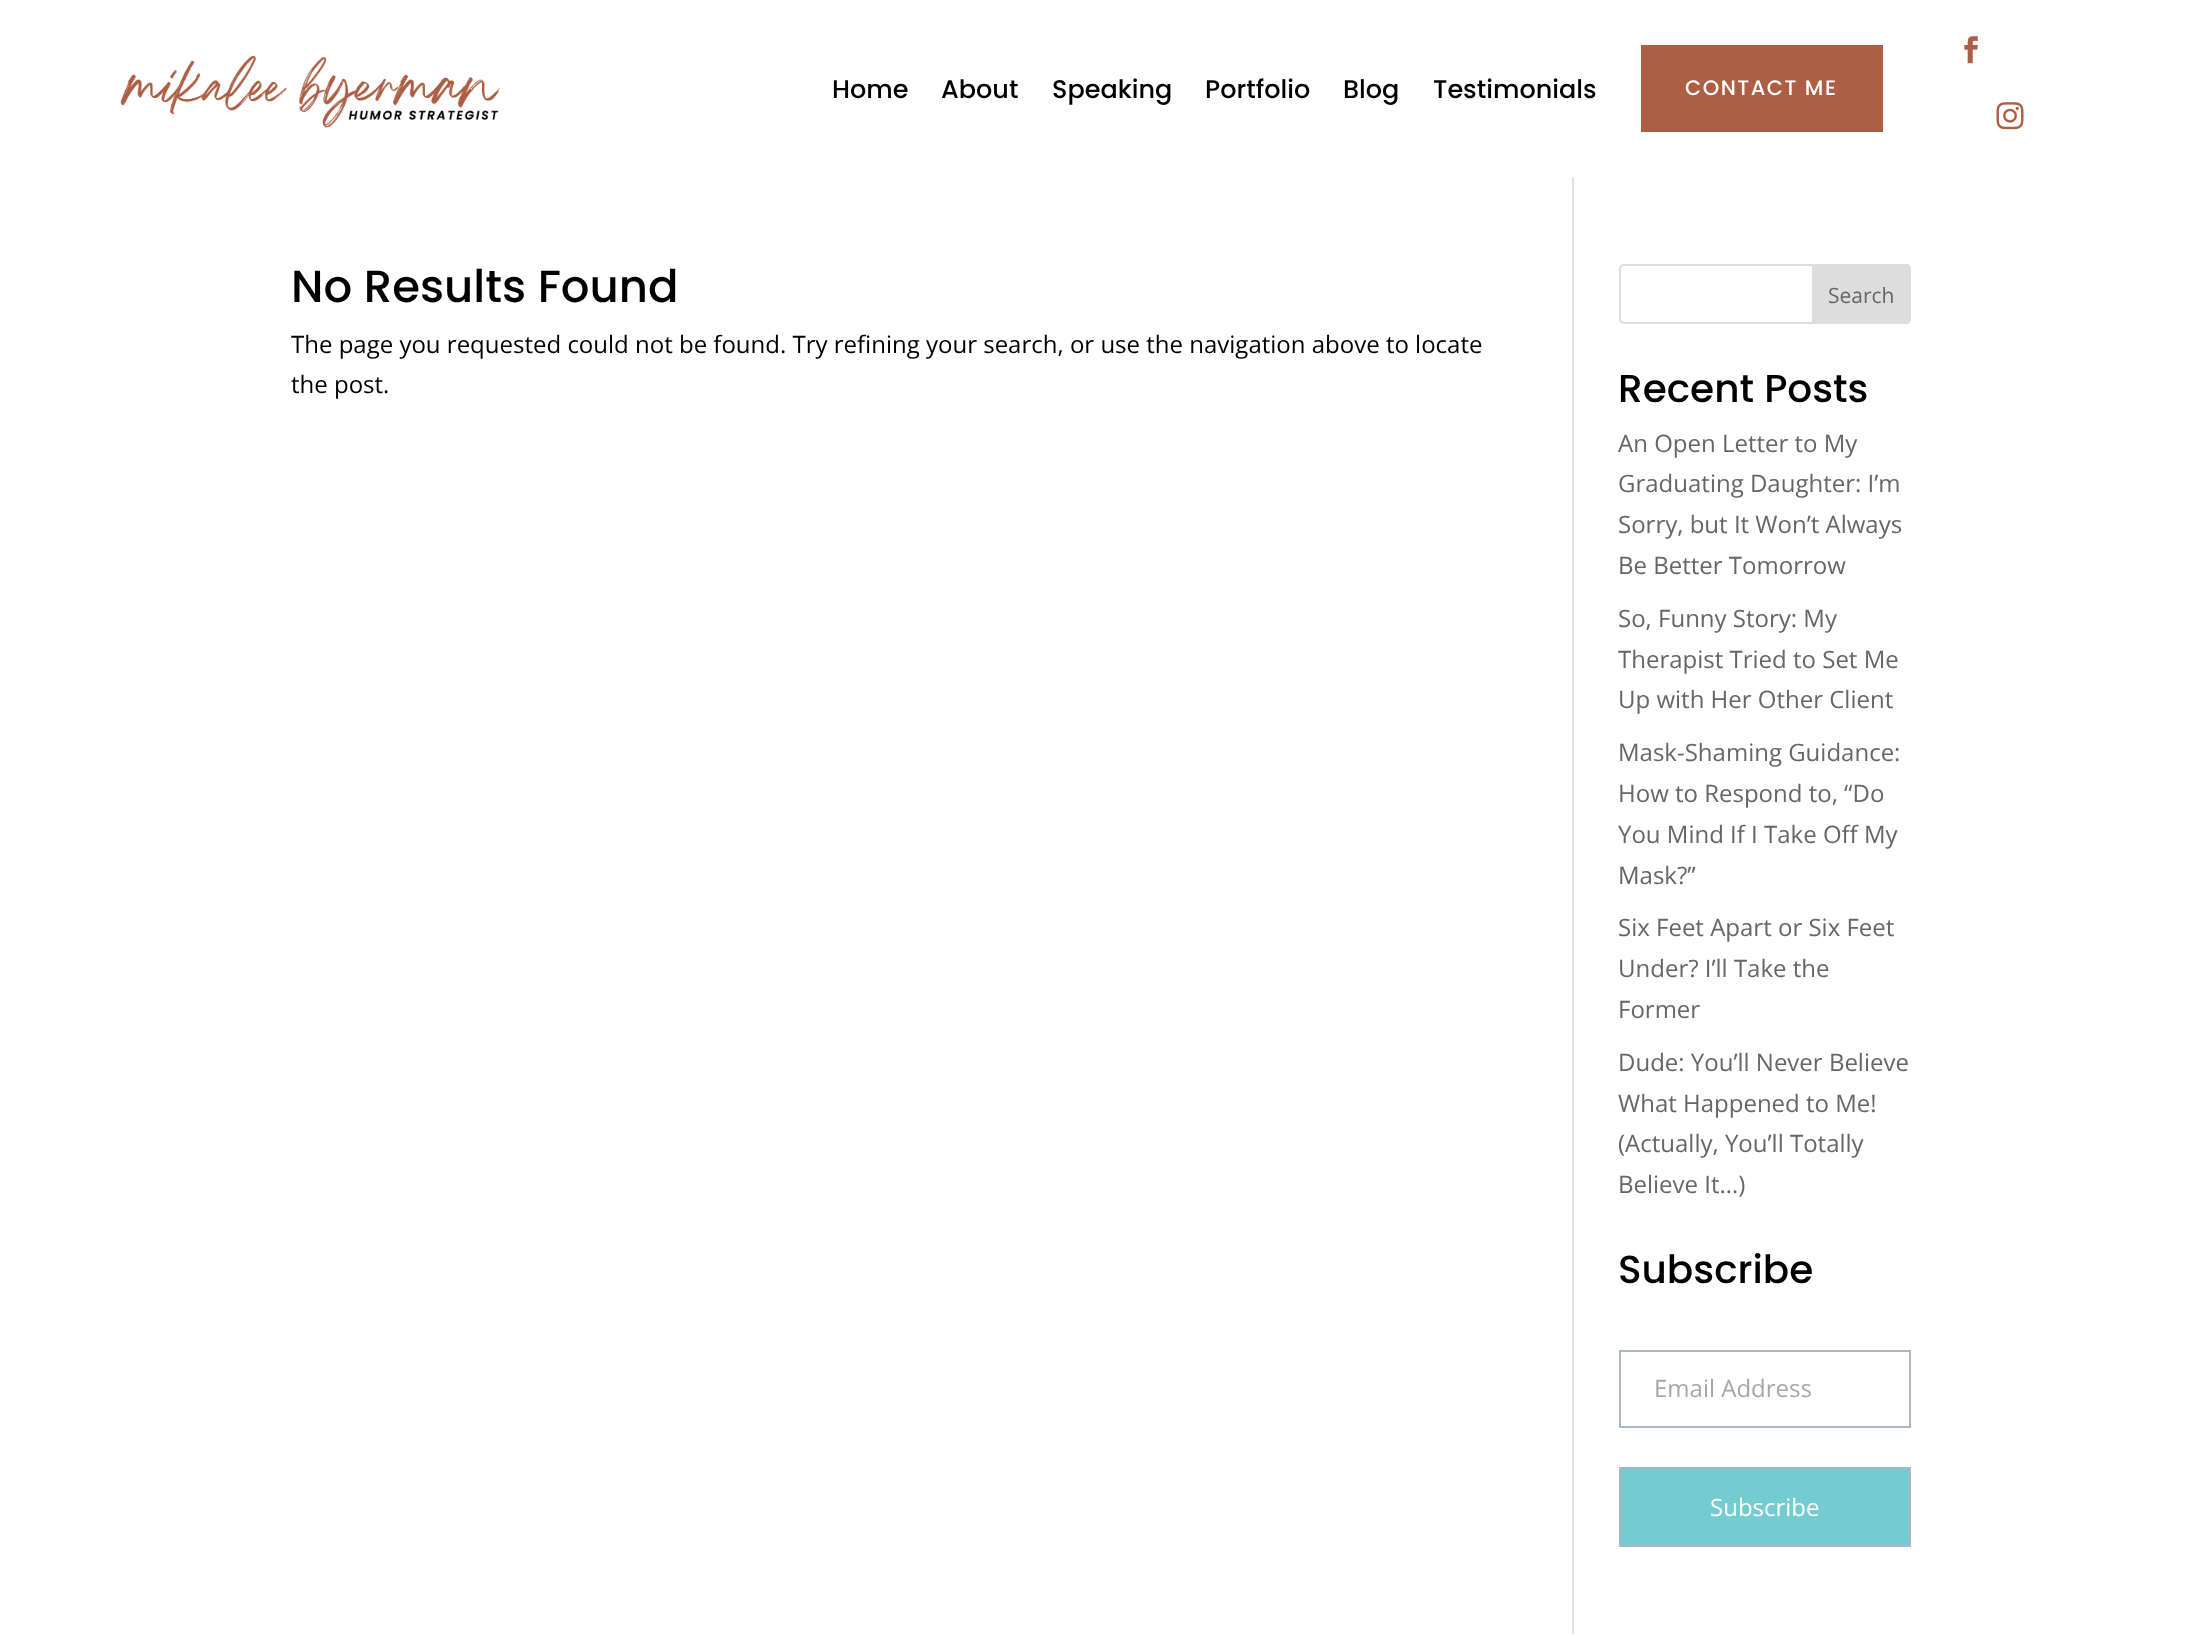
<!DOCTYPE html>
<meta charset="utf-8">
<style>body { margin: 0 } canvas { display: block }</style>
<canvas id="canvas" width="2202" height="1636"></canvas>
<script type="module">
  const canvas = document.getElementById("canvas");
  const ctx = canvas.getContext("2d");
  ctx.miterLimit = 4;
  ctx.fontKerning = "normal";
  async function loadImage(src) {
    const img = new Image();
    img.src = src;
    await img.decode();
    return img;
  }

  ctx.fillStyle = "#ffffff";
  ctx.fillRect(0, 0, 2202, 1636);
  ctx.drawImage(await loadImage("img1.png"), 120, 55, 380, 73);
  ctx.font = "500 25.5px Poppins";
  ctx.fillStyle = "#000000";
  ctx.fillText("Home", 832, 98);
  ctx.fillText("About", 941, 98);
  ctx.fillText("Speaking", 1052, 98);
  ctx.fillText("Portfolio", 1205, 98);
  ctx.fillText("Blog", 1343, 98);
  ctx.fillText("Testimonials", 1433, 98);
  ctx.fillStyle = "#ac5f45";
  ctx.fillRect(1641, 45, 242, 87);
  ctx.letterSpacing = "1.5px";
  ctx.font = "500 21px Poppins";
  ctx.fillStyle = "#ffffff";
  ctx.fillText("CONTACT ME", 1685, 95);
  ctx.drawImage(await loadImage("img2.png"), 1964, 36, 14, 28);
  ctx.drawImage(await loadImage("img3.png"), 1996, 102, 28, 28);
  ctx.fillStyle = "#e2e2e2";
  ctx.fillRect(1572, 177, 2, 1457);
  ctx.letterSpacing = "0px";
  ctx.font = "500 45px Poppins";
  ctx.fillStyle = "#000000";
  ctx.fillText("No Results Found", 291, 302);
  ctx.font = "24px Open Sans";
  ctx.fillText("The page you requested could not be found. Try refining your search, or use the navigation above to locate", 291, 353);
  ctx.fillText("the post.", 291, 393);
  ctx.beginPath();
  ctx.roundRect(1620, 265, 290, 58, 4);
  ctx.strokeStyle = "#dddddd";
  ctx.lineWidth = 2;
  ctx.stroke();
  ctx.fillStyle = "#dddddd";
  ctx.beginPath();
  ctx.roundRect(1813, 265, 97, 58, [0, 4, 4, 0]);
  ctx.fill();
  ctx.stroke();
  ctx.font = "21px Open Sans";
  ctx.fillStyle = "#666666";
  ctx.fillText("Search", 1828, 303);
  ctx.font = "500 39px Poppins";
  ctx.fillStyle = "#000000";
  ctx.fillText("Recent Posts", 1618, 402);
  ctx.font = "24px Open Sans";
  ctx.fillStyle = "#666666";
  ctx.fillText("An Open Letter to My", 1618, 452);
  ctx.fillText("Graduating Daughter: I’m", 1618, 492);
  ctx.fillText("Sorry, but It Won’t Always", 1618, 533);
  ctx.fillText("Be Better Tomorrow", 1618, 574);
  ctx.fillText("So, Funny Story: My", 1618, 627);
  ctx.fillText("Therapist Tried to Set Me", 1618, 668);
  ctx.fillText("Up with Her Other Client", 1618, 708);
  ctx.fillText("Mask-Shaming Guidance:", 1618, 761);
  ctx.fillText("How to Respond to, “Do", 1618, 802);
  ctx.fillText("You Mind If I Take Off My", 1618, 843);
  ctx.fillText("Mask?”", 1618, 884);
  ctx.fillText("Six Feet Apart or Six Feet", 1618, 936);
  ctx.fillText("Under? I’ll Take the", 1618, 977);
  ctx.fillText("Former", 1618, 1018);
  ctx.fillText("Dude: You’ll Never Believe", 1618, 1071);
  ctx.fillText("What Happened to Me!", 1618, 1112);
  ctx.fillText("(Actually, You’ll Totally", 1618, 1152);
  ctx.fillText("Believe It…)", 1618, 1193);
  ctx.font = "500 39px Poppins";
  ctx.fillStyle = "#000000";
  ctx.fillText("Subscribe", 1618, 1283);
  ctx.strokeStyle = "#abb8c3";
  ctx.strokeRect(1620, 1351, 290, 76);
  ctx.font = "24px Open Sans";
  ctx.fillStyle = "#a7a7a7";
  ctx.fillText("Email Address", 1654, 1397);
  ctx.fillStyle = "#74ccd1";
  ctx.beginPath();
  ctx.rect(1620, 1468, 290, 78);
  ctx.fill();
  ctx.stroke();
  ctx.fillStyle = "#ffffff";
  ctx.fillText("Subscribe", 1710, 1516);
</script>
